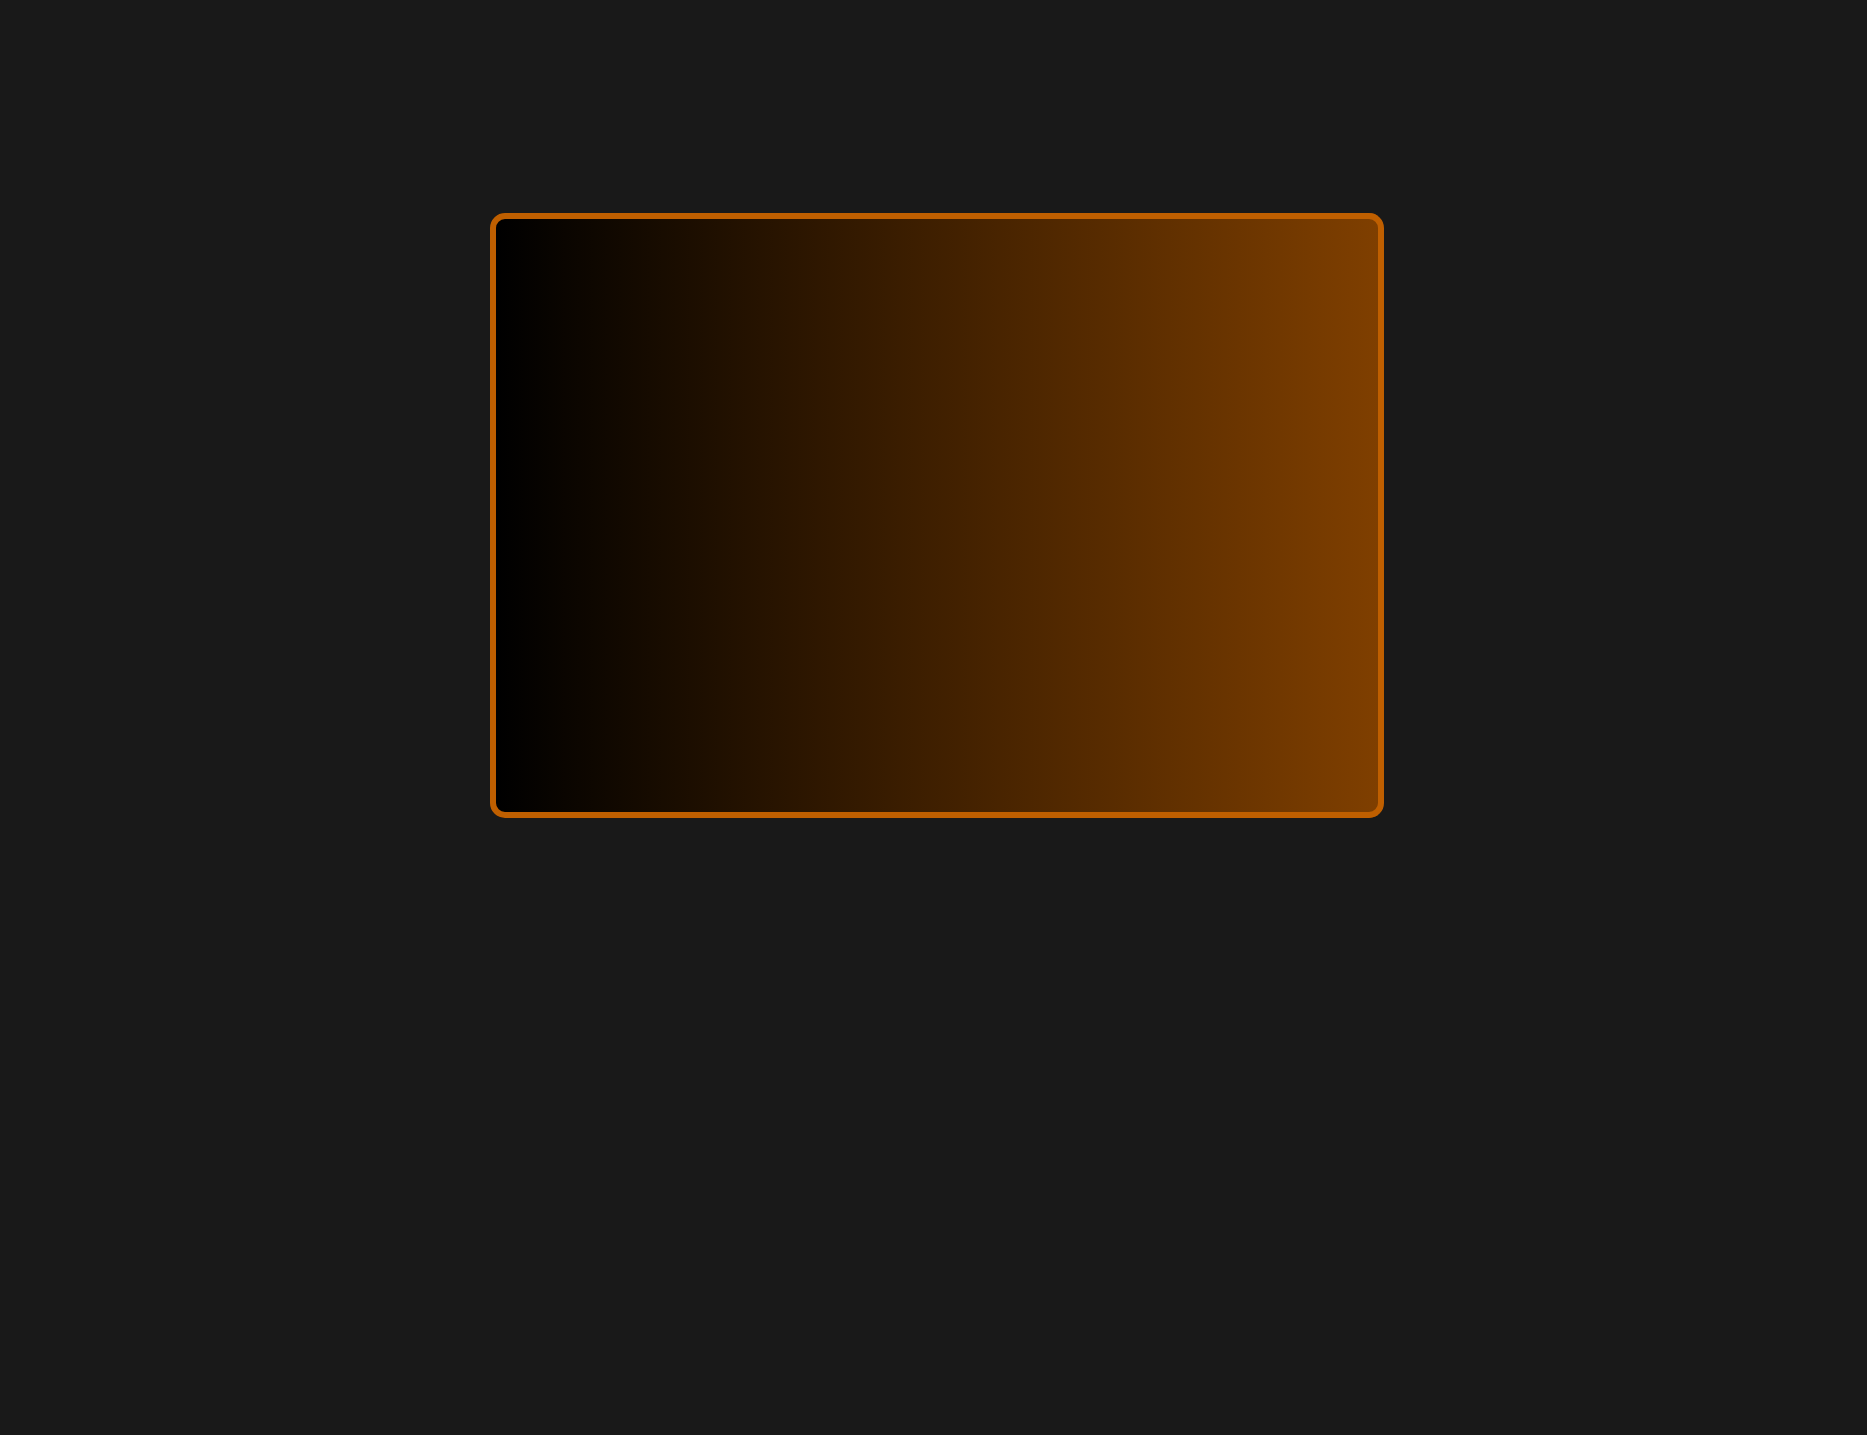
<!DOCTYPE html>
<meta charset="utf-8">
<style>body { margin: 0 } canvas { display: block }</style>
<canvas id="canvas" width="1867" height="1435"></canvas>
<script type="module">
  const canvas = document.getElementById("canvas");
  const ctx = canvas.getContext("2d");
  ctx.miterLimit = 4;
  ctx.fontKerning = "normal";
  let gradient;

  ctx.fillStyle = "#191919";
  ctx.fillRect(0, 0, 1867, 1435);
  ctx.save();
  ctx.beginPath();
  ctx.roundRect(490, 213, 894, 605, 15);
  ctx.clip();
  gradient = ctx.createLinearGradient(496, 515, 1378, 515);
  gradient.addColorStop(0, "#000000");
  gradient.addColorStop(1, "#7f3f00");
  ctx.fillStyle = gradient;
  ctx.fillRect(496, 213, 882, 605);
  ctx.restore();
  ctx.beginPath();
  ctx.roundRect(493, 216, 888, 599, 12);
  ctx.strokeStyle = "#bf5f00";
  ctx.lineWidth = 6;
  ctx.stroke();
</script>
